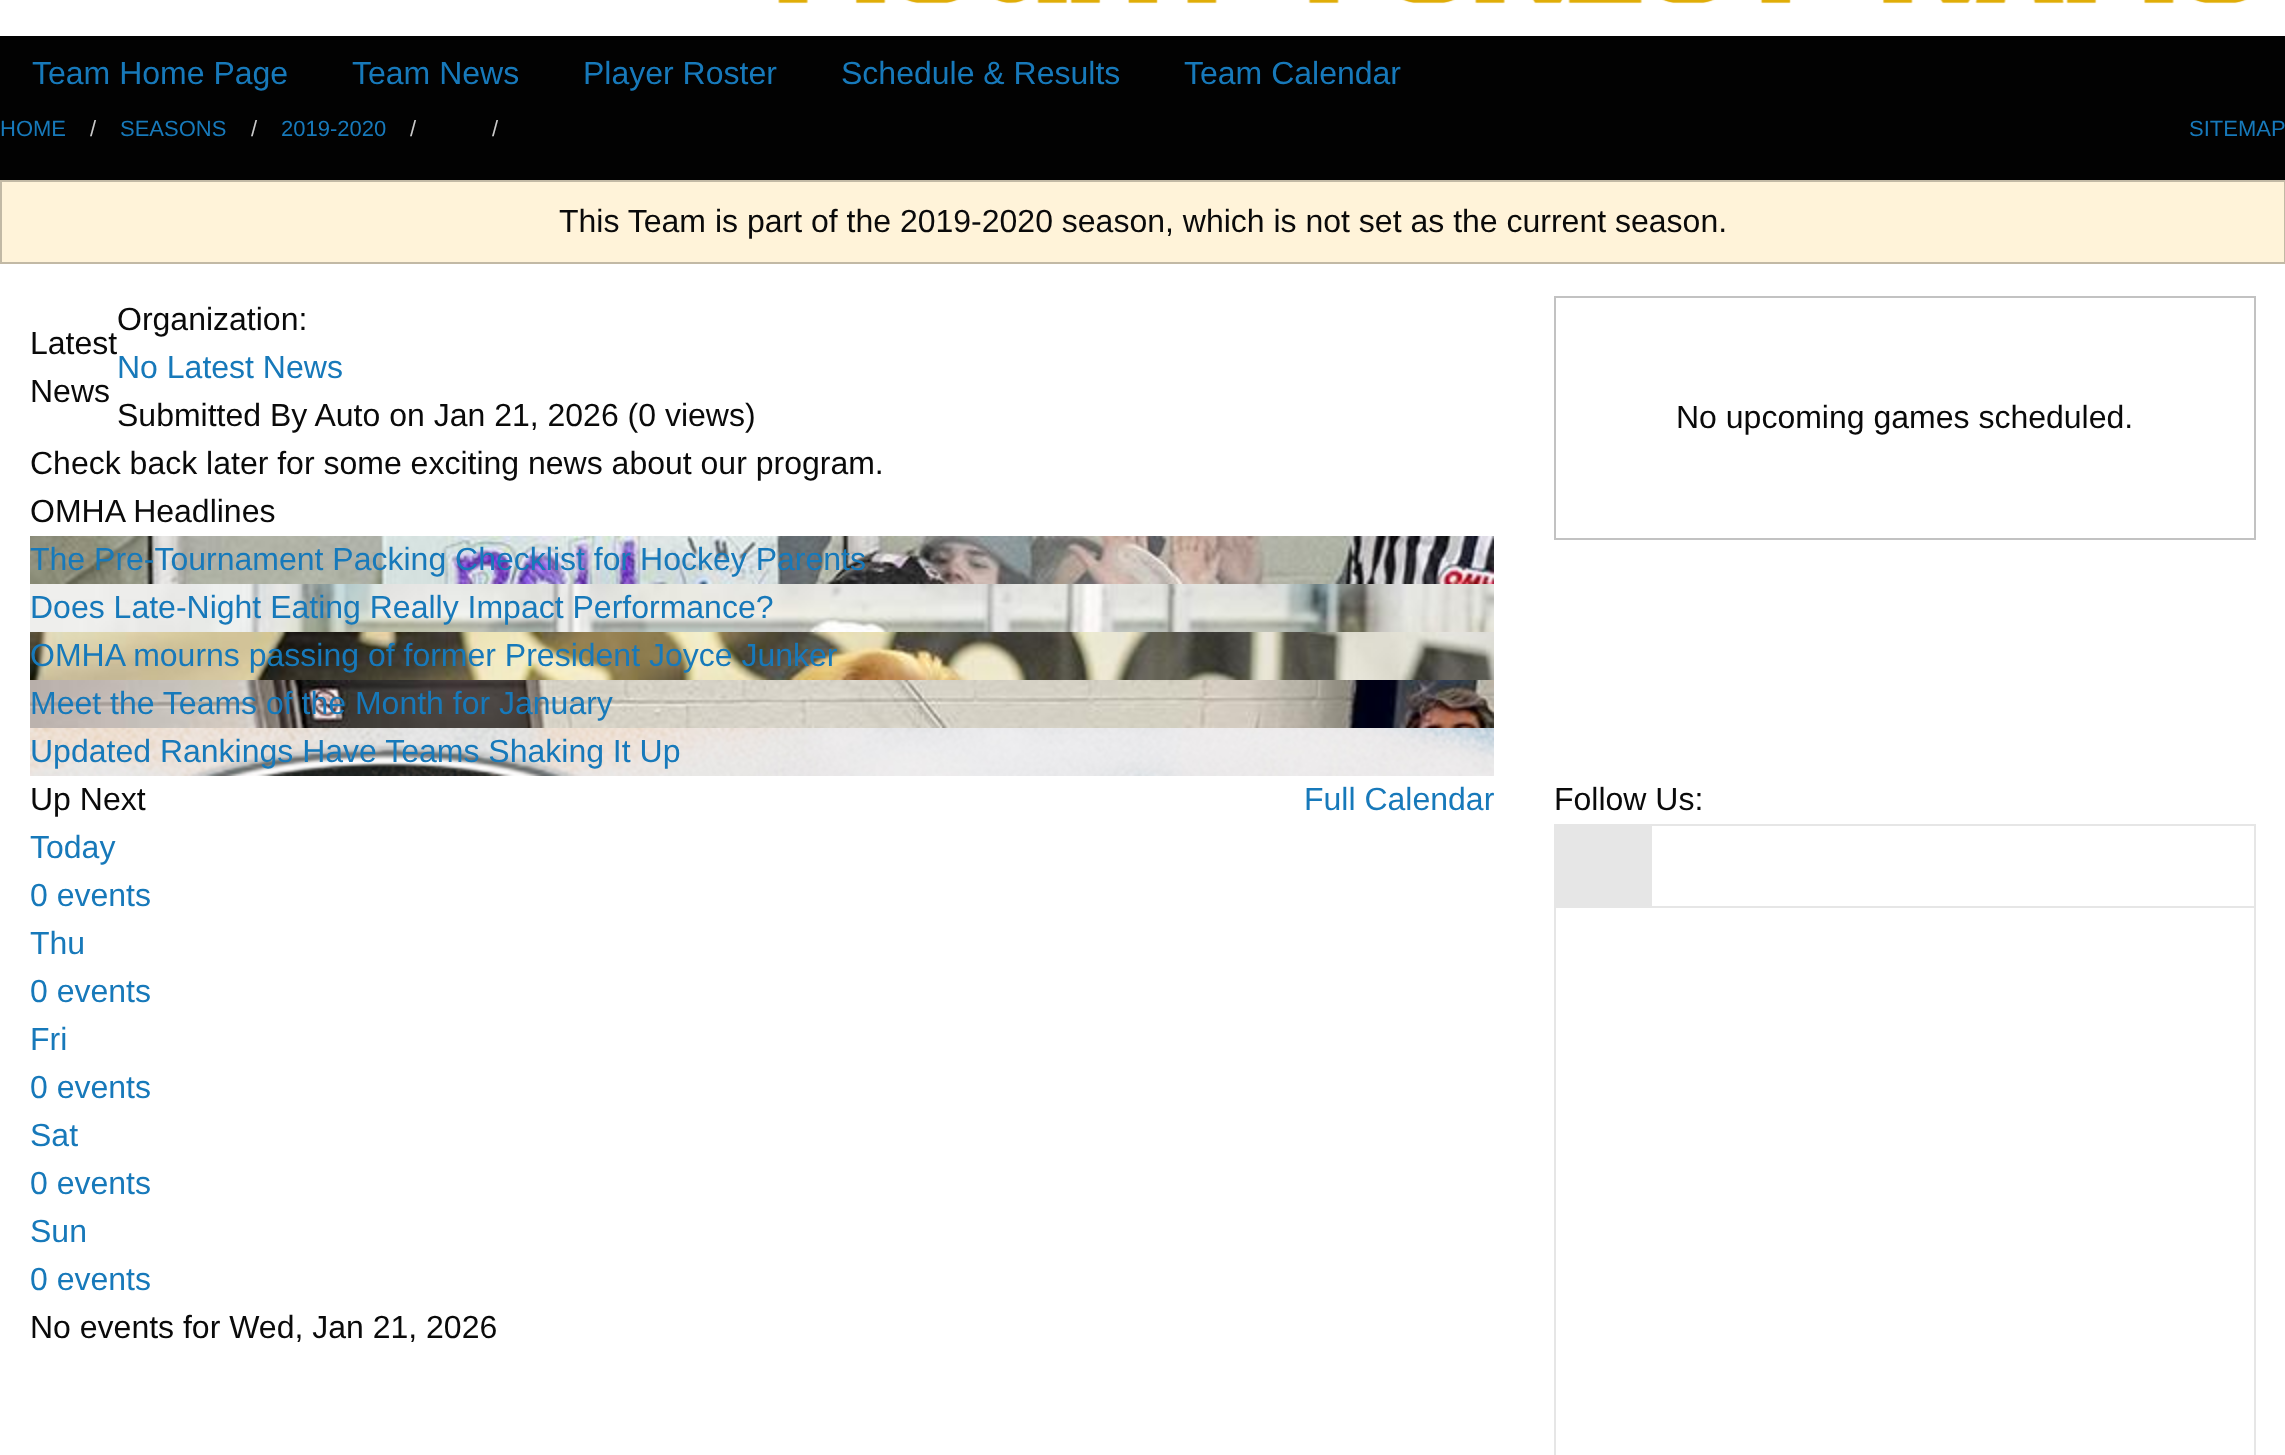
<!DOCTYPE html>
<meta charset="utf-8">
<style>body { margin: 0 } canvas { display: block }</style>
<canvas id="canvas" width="2285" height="1455"></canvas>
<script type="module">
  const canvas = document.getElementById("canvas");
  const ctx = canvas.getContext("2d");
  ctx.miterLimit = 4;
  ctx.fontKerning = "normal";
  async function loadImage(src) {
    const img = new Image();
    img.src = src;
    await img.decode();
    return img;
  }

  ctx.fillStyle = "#020202";
  ctx.fillRect(0, 0, 2285, 1455);
  ctx.fillStyle = "#ffffff";
  ctx.fillRect(0, 0, 2285, 36);
  ctx.drawImage(await loadImage("img1.png"), 778, 0, 1469, 4);
  ctx.font = "32px Liberation Sans";
  ctx.fillStyle = "#1779ba";
  ctx.fillText("Team Home Page", 32, 84);
  ctx.fillText("Team News", 352, 84);
  ctx.fillText("Player Roster", 583, 84);
  ctx.fillText("Schedule & Results", 841, 84);
  ctx.fillText("Team Calendar", 1184, 84);
  ctx.font = "22px Liberation Sans";
  ctx.fillText("HOME", 0, 136);
  ctx.fillStyle = "#cacaca";
  ctx.fillText("/", 90, 136);
  ctx.fillStyle = "#1779ba";
  ctx.fillText("SEASONS", 120, 136);
  ctx.fillStyle = "#cacaca";
  ctx.fillText("/", 251, 136);
  ctx.fillStyle = "#1779ba";
  ctx.fillText("2019-2020", 281, 136);
  ctx.fillStyle = "#cacaca";
  ctx.fillText("/", 410, 136);
  ctx.fillText("/", 492, 136);
  ctx.fillStyle = "#1779ba";
  ctx.fillText("SITEMAP", 2189, 136);
  ctx.fillStyle = "#ffffff";
  ctx.fillRect(0, 264, 2285, 1191);
  ctx.fillStyle = "#fff3d9";
  ctx.beginPath();
  ctx.rect(1, 181, 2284, 82);
  ctx.fill();
  ctx.strokeStyle = "#c2b9a5";
  ctx.lineWidth = 2;
  ctx.stroke();
  ctx.font = "32px Liberation Sans";
  ctx.fillStyle = "#0a0a0a";
  ctx.fillText("This Team is part of the 2019-2020 season, which is not set as the current season.", 559, 232);
  ctx.fillText("Latest", 30, 354);
  ctx.fillText("News", 30, 402);
  ctx.fillText("Organization:", 117, 330);
  ctx.fillStyle = "#1779ba";
  ctx.fillText("No Latest News", 117, 378);
  ctx.fillStyle = "#0a0a0a";
  ctx.fillText("Submitted By Auto on Jan 21, 2026 (0 views)", 117, 426);
  ctx.fillText("Check back later for some exciting news about our program.", 30, 474);
  ctx.fillText("OMHA Headlines", 30, 522);
  ctx.drawImage(await loadImage("img2.png"), 30, 536, 1464, 48);
  ctx.fillStyle = "#1779ba";
  ctx.fillText("The Pre-Tournament Packing Checklist for Hockey Parents", 30, 570);
  ctx.drawImage(await loadImage("img3.png"), 30, 584, 1464, 48);
  ctx.fillText("Does Late-Night Eating Really Impact Performance?", 30, 618);
  ctx.drawImage(await loadImage("img4.png"), 30, 632, 1464, 48);
  ctx.fillText("OMHA mourns passing of former President Joyce Junker", 30, 666);
  ctx.drawImage(await loadImage("img5.png"), 30, 680, 1464, 48);
  ctx.fillText("Meet the Teams of the Month for January", 30, 714);
  ctx.drawImage(await loadImage("img6.png"), 30, 728, 1464, 48);
  ctx.fillText("Updated Rankings Have Teams Shaking It Up", 30, 762);
  ctx.strokeStyle = "#c2c2c2";
  ctx.strokeRect(1555, 297, 700, 242);
  ctx.fillStyle = "#0a0a0a";
  ctx.fillText("No upcoming games scheduled.", 1676, 428);
  ctx.fillText("Up Next", 30, 810);
  ctx.fillStyle = "#1779ba";
  ctx.fillText("Full Calendar", 1304, 810);
  ctx.fillText("Today", 30, 858);
  ctx.fillText("0 events", 30, 906);
  ctx.fillText("Thu", 30, 954);
  ctx.fillText("0 events", 30, 1002);
  ctx.fillText("Fri", 30, 1050);
  ctx.fillText("0 events", 30, 1098);
  ctx.fillText("Sat", 30, 1146);
  ctx.fillText("0 events", 30, 1194);
  ctx.fillText("Sun", 30, 1242);
  ctx.fillText("0 events", 30, 1290);
  ctx.fillStyle = "#0a0a0a";
  ctx.fillText("No events for Wed, Jan 21, 2026", 30, 1338);
  ctx.fillText("Follow Us:", 1554, 810);
  ctx.strokeStyle = "#e6e6e6";
  ctx.strokeRect(1555, 825, 700, 82);
  ctx.fillStyle = "#e6e6e6";
  ctx.fillRect(1556, 826, 96, 80);
  ctx.fillRect(2254, 908, 2, 547);
  ctx.fillRect(1554, 908, 2, 547);
</script>
